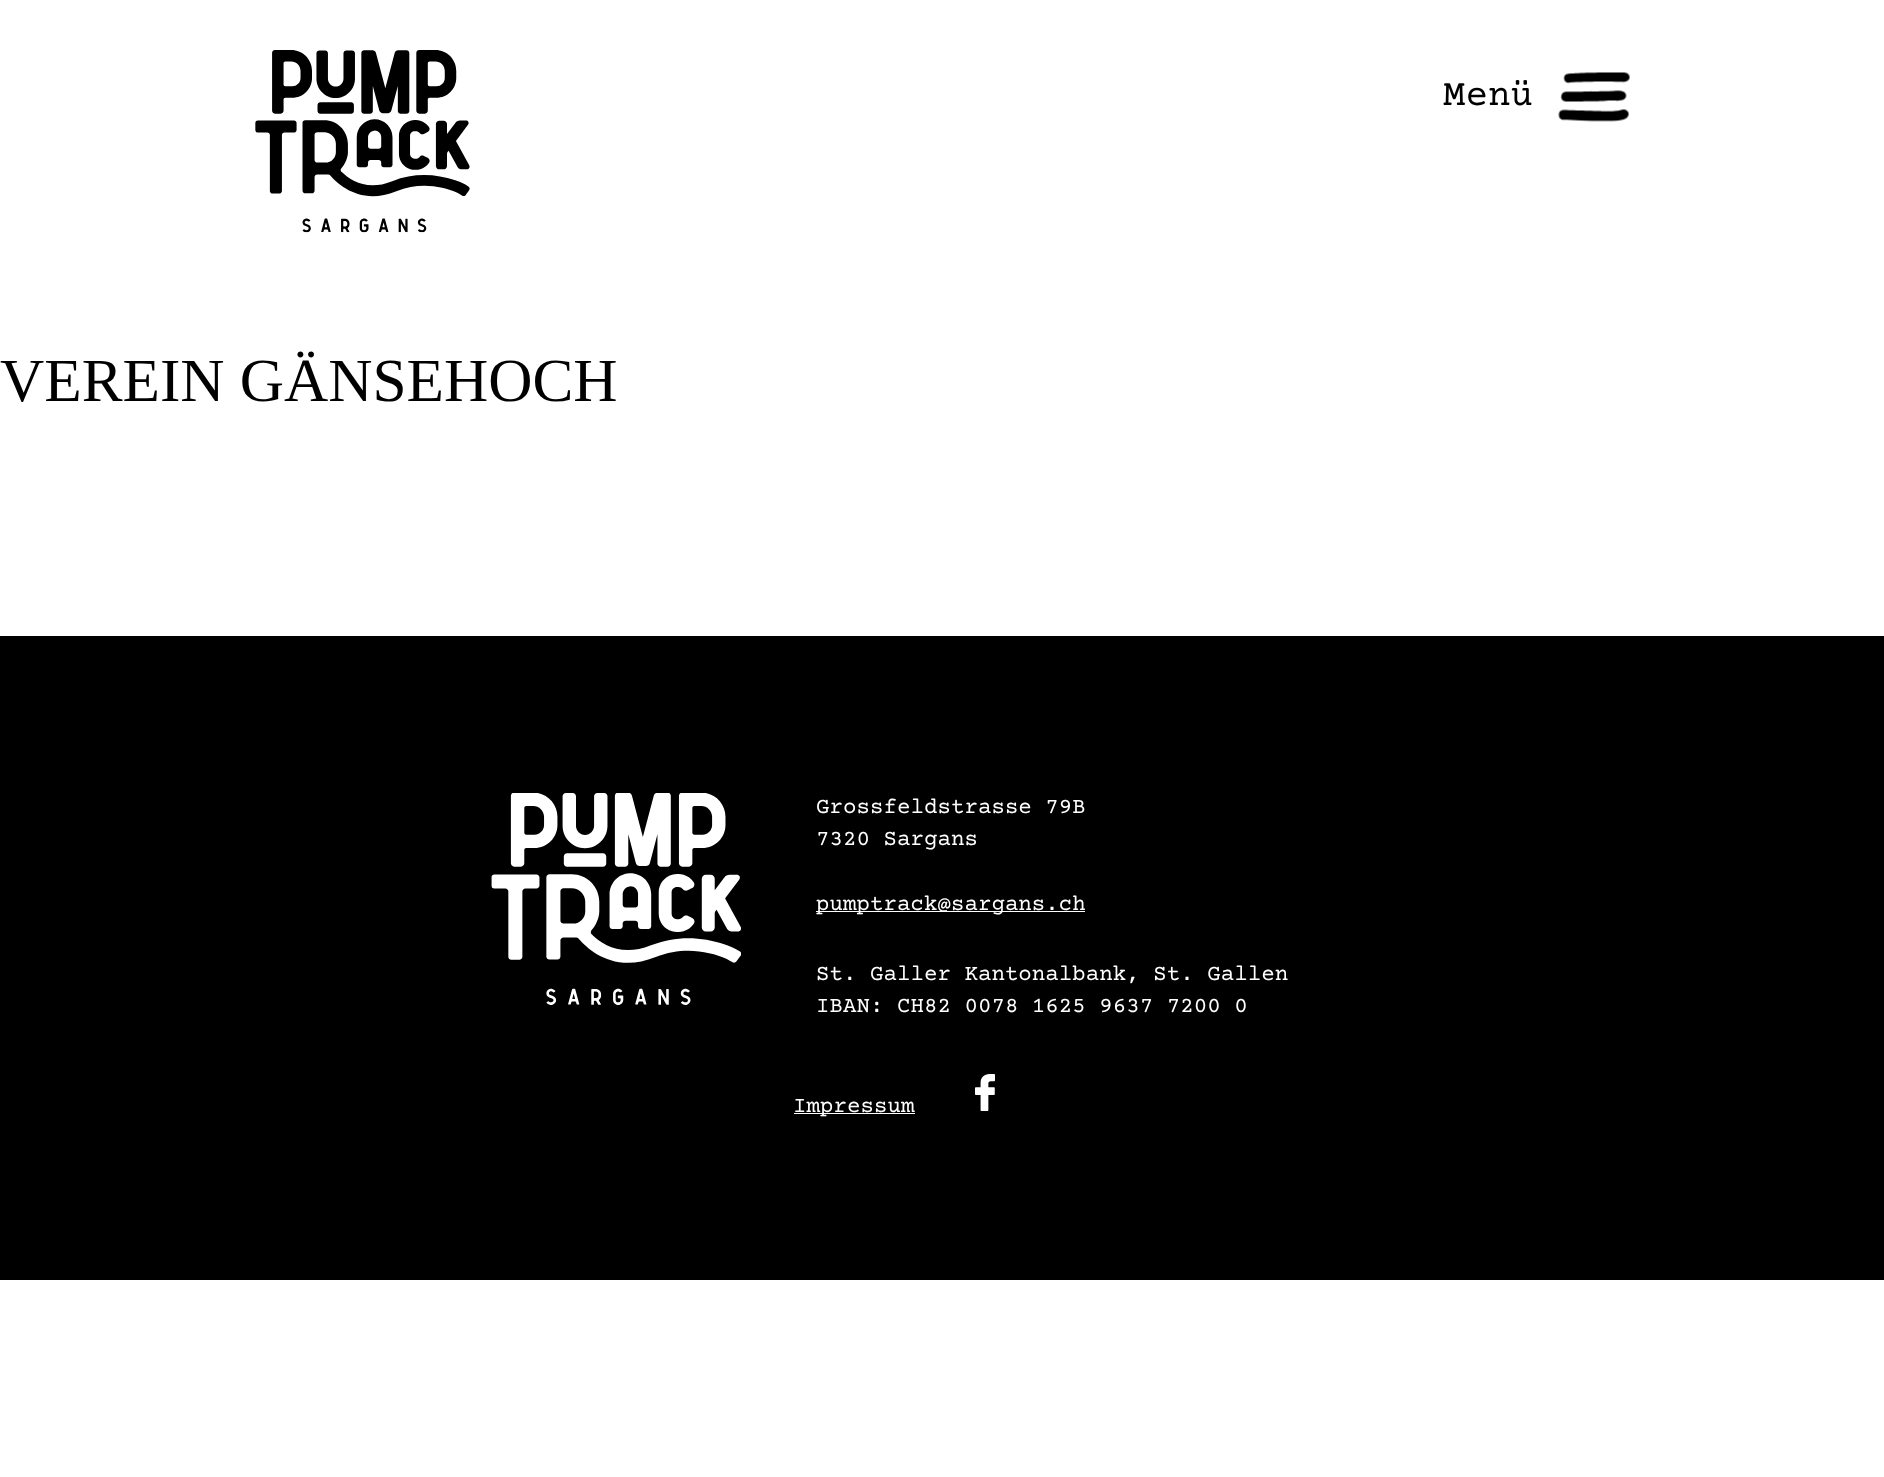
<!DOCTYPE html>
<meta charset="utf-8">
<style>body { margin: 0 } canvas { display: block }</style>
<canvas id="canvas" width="1884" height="1477"></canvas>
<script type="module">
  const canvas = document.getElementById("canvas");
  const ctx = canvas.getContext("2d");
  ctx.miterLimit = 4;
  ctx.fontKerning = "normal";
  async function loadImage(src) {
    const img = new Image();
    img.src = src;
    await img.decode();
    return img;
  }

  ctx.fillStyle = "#ffffff";
  ctx.fillRect(0, 0, 1884, 1477);
  ctx.drawImage(await loadImage("img1.png"), 255, 50, 215, 183);
  ctx.drawImage(await loadImage("img2.png"), 1558, 72, 72, 50);
  ctx.font = "37.5px Courier Prime";
  ctx.fillStyle = "#000000";
  ctx.fillText("Menü", 1443, 105);
  ctx.font = "61.25px Liberation Serif";
  ctx.fillText("VEREIN GÄNSEHOCH", 0, 401);
  ctx.fillRect(0, 636, 1884, 644);
  ctx.drawImage(await loadImage("img3.png"), 491, 793, 250, 212);
  ctx.font = "22.5px Courier Prime";
  ctx.fillStyle = "#ffffff";
  ctx.fillText("Grossfeldstrasse 79B", 816, 813);
  ctx.fillText("7320 Sargans", 816, 845);
  ctx.fillRect(816, 911, 269, 1);
  ctx.fillText("pumptrack@sargans.ch", 816, 910);
  ctx.fillText("St. Galler Kantonalbank, St. Gallen", 816, 980);
  ctx.fillText("IBAN: CH82 0078 1625 9637 7200 0", 816, 1012);
  ctx.fillRect(794, 1113, 121, 1);
  ctx.fillText("Impressum", 793, 1112);
  ctx.drawImage(await loadImage("img4.png"), 975, 1074, 20, 37);
</script>
